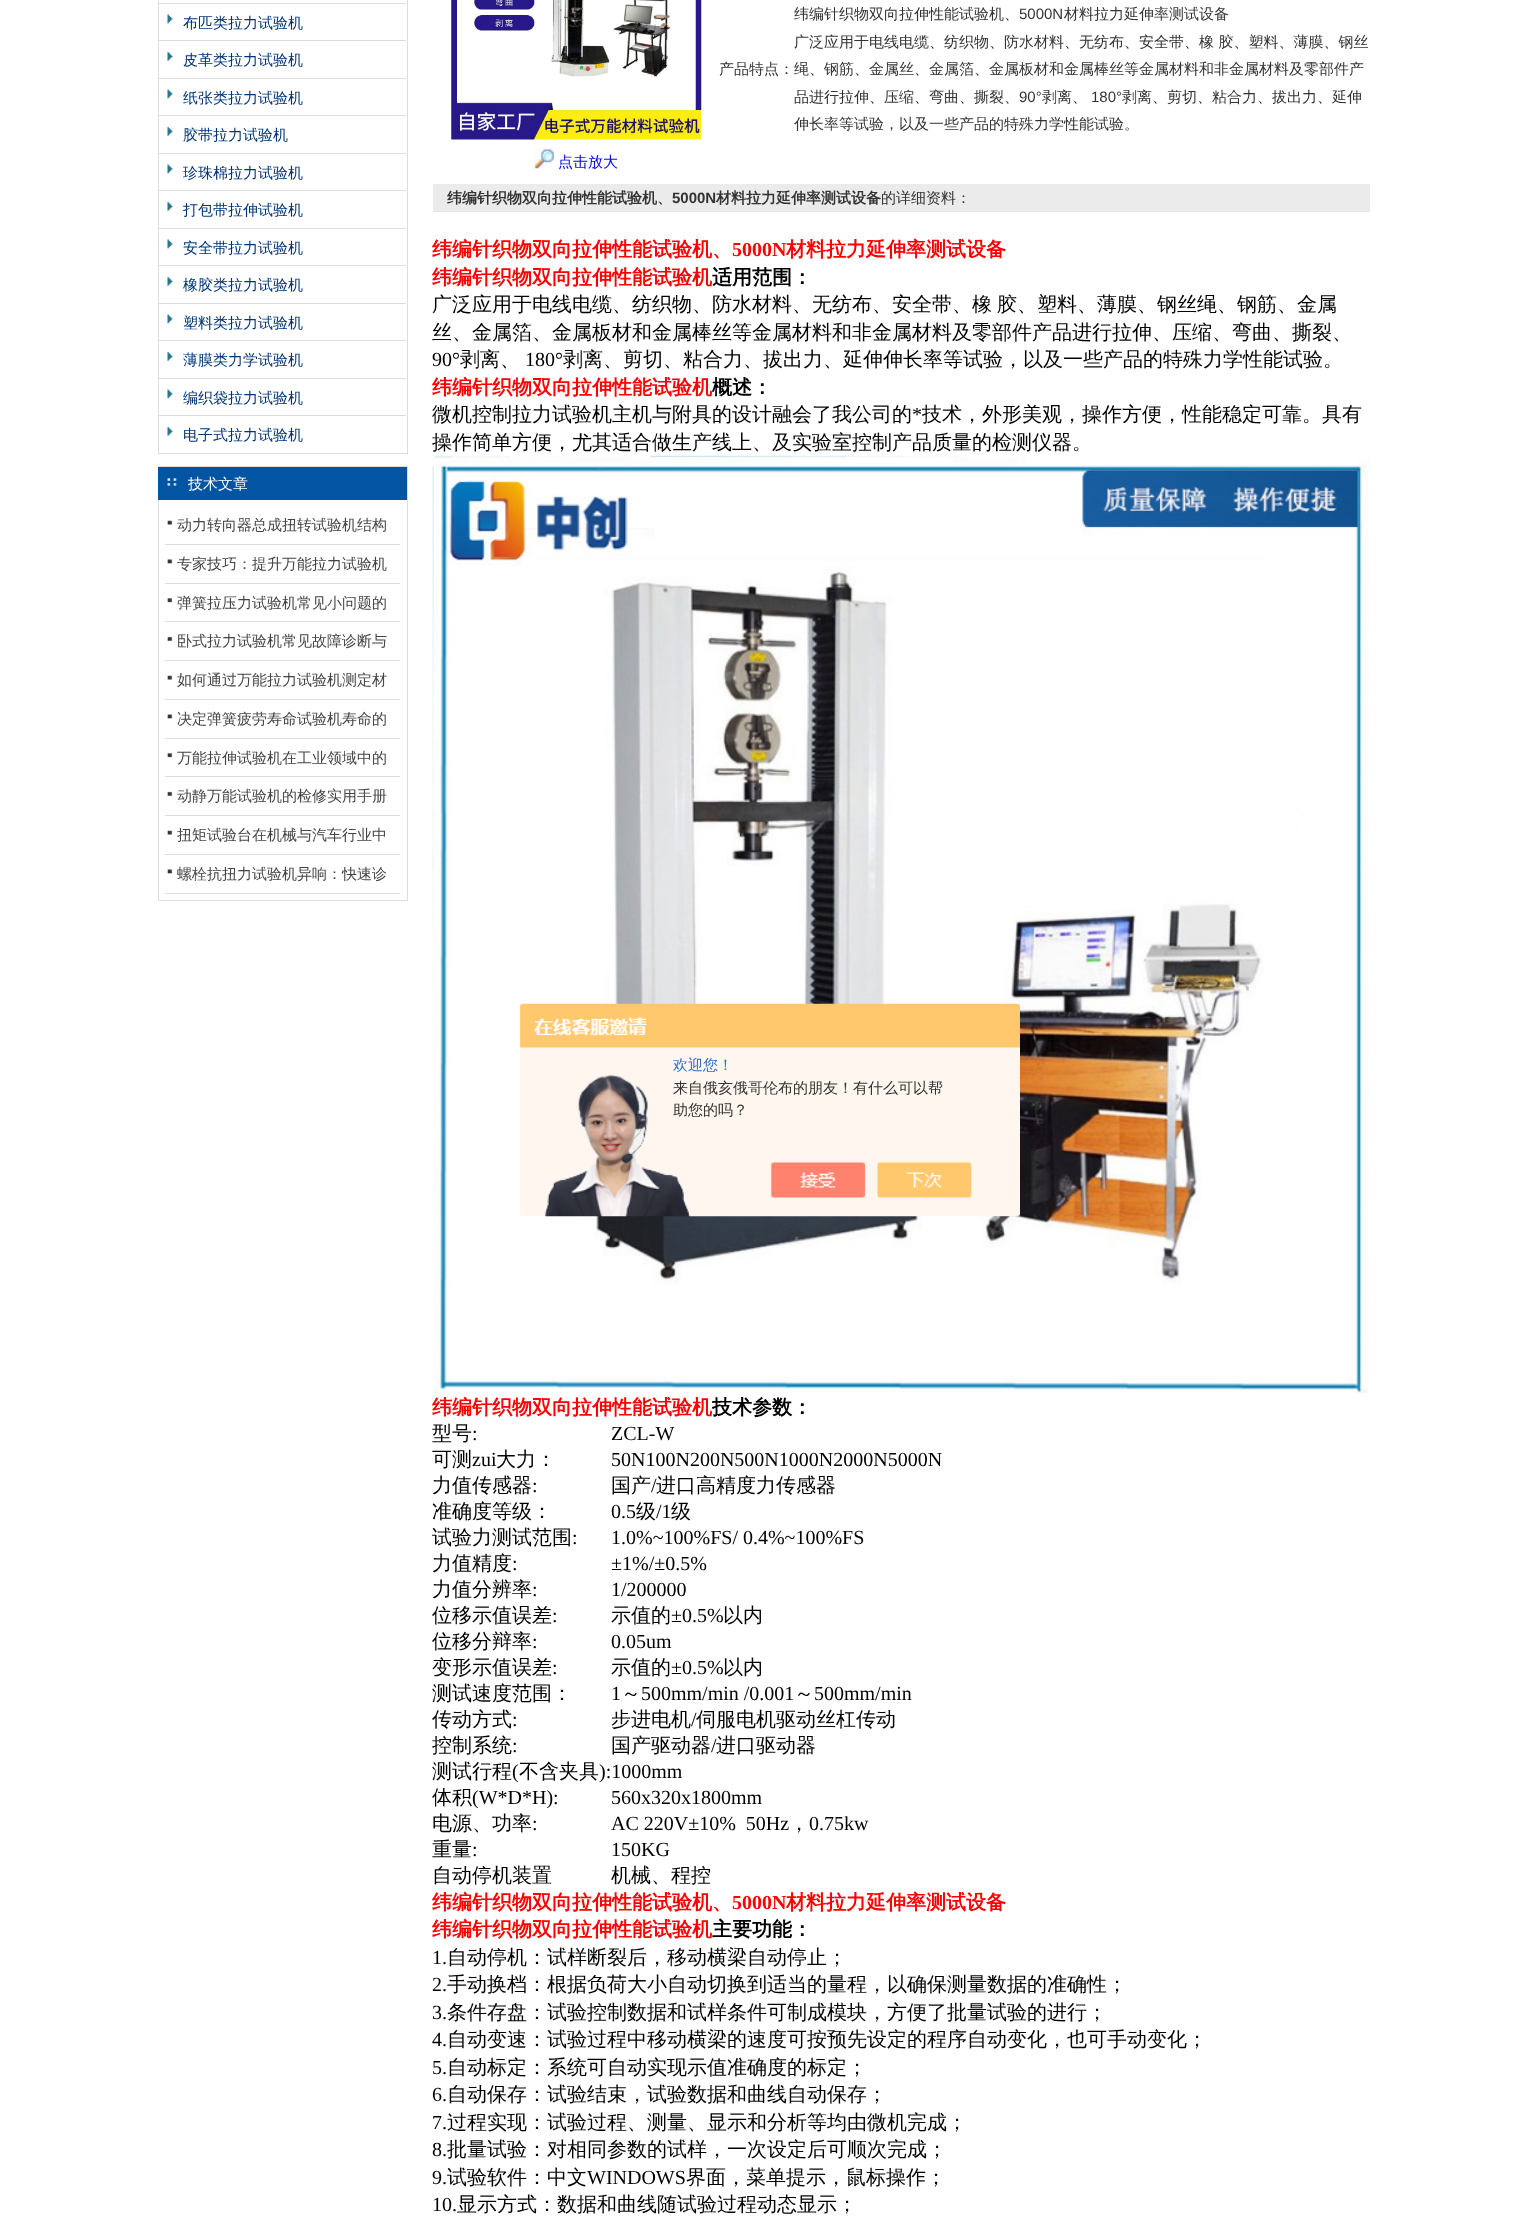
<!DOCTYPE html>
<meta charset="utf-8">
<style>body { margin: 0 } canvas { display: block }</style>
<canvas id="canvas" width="1538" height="2220"></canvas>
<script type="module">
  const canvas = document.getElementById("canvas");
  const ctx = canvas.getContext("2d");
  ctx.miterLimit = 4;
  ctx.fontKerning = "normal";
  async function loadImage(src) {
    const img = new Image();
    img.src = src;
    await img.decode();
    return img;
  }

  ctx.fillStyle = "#ffffff";
  ctx.fillRect(0, 0, 1538, 2220);
  ctx.strokeStyle = "#dddddd";
  ctx.strokeRect(158.5, -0.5, 249, 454);
  ctx.fillStyle = "#dddddd";
  ctx.fillRect(159, 3, 247, 1);
  ctx.drawImage(await loadImage("img1.png"), 164, 14, 9, 10);
  ctx.font = "500 15px WenQuanYi Zen Hei";
  ctx.fillStyle = "#013476";
  ctx.fillText("布匹类拉力试验机", 183, 28);
  ctx.fillStyle = "#dddddd";
  ctx.fillRect(159, 40, 247, 1);
  ctx.drawImage(await loadImage("img2.png"), 163, 51, 10, 12);
  ctx.fillStyle = "#013476";
  ctx.fillText("皮革类拉力试验机", 183, 65);
  ctx.fillStyle = "#dddddd";
  ctx.fillRect(159, 78, 247, 1);
  ctx.drawImage(await loadImage("img1.png"), 164, 89, 9, 10);
  ctx.fillStyle = "#013476";
  ctx.fillText("纸张类拉力试验机", 183, 103);
  ctx.fillStyle = "#dddddd";
  ctx.fillRect(159, 115, 247, 1);
  ctx.drawImage(await loadImage("img2.png"), 163, 126, 10, 12);
  ctx.fillStyle = "#013476";
  ctx.fillText("胶带拉力试验机", 183, 140);
  ctx.fillStyle = "#dddddd";
  ctx.fillRect(159, 153, 247, 1);
  ctx.drawImage(await loadImage("img1.png"), 164, 164, 9, 10);
  ctx.fillStyle = "#013476";
  ctx.fillText("珍珠棉拉力试验机", 183, 178);
  ctx.fillStyle = "#dddddd";
  ctx.fillRect(159, 190, 247, 1);
  ctx.drawImage(await loadImage("img2.png"), 163, 201, 10, 12);
  ctx.fillStyle = "#013476";
  ctx.fillText("打包带拉伸试验机", 183, 215);
  ctx.fillStyle = "#dddddd";
  ctx.fillRect(159, 228, 247, 1);
  ctx.drawImage(await loadImage("img1.png"), 164, 239, 9, 10);
  ctx.fillStyle = "#013476";
  ctx.fillText("安全带拉力试验机", 183, 253);
  ctx.fillStyle = "#dddddd";
  ctx.fillRect(159, 265, 247, 1);
  ctx.drawImage(await loadImage("img2.png"), 163, 276, 10, 12);
  ctx.fillStyle = "#013476";
  ctx.fillText("橡胶类拉力试验机", 183, 290);
  ctx.fillStyle = "#dddddd";
  ctx.fillRect(159, 303, 247, 1);
  ctx.drawImage(await loadImage("img1.png"), 164, 314, 9, 10);
  ctx.fillStyle = "#013476";
  ctx.fillText("塑料类拉力试验机", 183, 328);
  ctx.fillStyle = "#dddddd";
  ctx.fillRect(159, 340, 247, 1);
  ctx.drawImage(await loadImage("img2.png"), 163, 351, 10, 12);
  ctx.fillStyle = "#013476";
  ctx.fillText("薄膜类力学试验机", 183, 365);
  ctx.fillStyle = "#dddddd";
  ctx.fillRect(159, 378, 247, 1);
  ctx.drawImage(await loadImage("img1.png"), 164, 389, 9, 10);
  ctx.fillStyle = "#013476";
  ctx.fillText("编织袋拉力试验机", 183, 403);
  ctx.fillStyle = "#dddddd";
  ctx.fillRect(159, 415, 247, 1);
  ctx.drawImage(await loadImage("img2.png"), 163, 426, 10, 12);
  ctx.fillStyle = "#013476";
  ctx.fillText("电子式拉力试验机", 183, 440);
  ctx.strokeRect(158.5, 466.5, 249, 434);
  ctx.fillStyle = "#0354a3";
  ctx.fillRect(158, 467, 249, 33);
  ctx.drawImage(await loadImage("img3.png"), 167, 478, 10, 8);
  ctx.fillStyle = "#ffffff";
  ctx.fillText("技术文章", 188, 489);
  ctx.drawImage(await loadImage("img4.png"), 167, 520, 6, 5);
  ctx.fillStyle = "#dddddd";
  ctx.fillRect(165, 544, 235, 1);
  ctx.fillStyle = "#444444";
  ctx.fillText("动力转向器总成扭转试验机结构", 177, 530);
  ctx.drawImage(await loadImage("img5.png"), 167, 559, 6, 5);
  ctx.fillStyle = "#dddddd";
  ctx.fillRect(165, 583, 235, 1);
  ctx.fillStyle = "#444444";
  ctx.fillText("专家技巧：提升万能拉力试验机", 177, 569);
  ctx.drawImage(await loadImage("img6.png"), 167, 598, 6, 5);
  ctx.fillStyle = "#dddddd";
  ctx.fillRect(165, 621, 235, 1);
  ctx.fillStyle = "#444444";
  ctx.fillText("弹簧拉压力试验机常见小问题的", 177, 608);
  ctx.drawImage(await loadImage("img7.png"), 167, 636, 6, 5);
  ctx.fillStyle = "#dddddd";
  ctx.fillRect(165, 660, 235, 1);
  ctx.fillStyle = "#444444";
  ctx.fillText("卧式拉力试验机常见故障诊断与", 177, 646);
  ctx.drawImage(await loadImage("img4.png"), 167, 675, 6, 5);
  ctx.fillStyle = "#dddddd";
  ctx.fillRect(165, 699, 235, 1);
  ctx.fillStyle = "#444444";
  ctx.fillText("如何通过万能拉力试验机测定材", 177, 685);
  ctx.drawImage(await loadImage("img5.png"), 167, 714, 6, 5);
  ctx.fillStyle = "#dddddd";
  ctx.fillRect(165, 738, 235, 1);
  ctx.fillStyle = "#444444";
  ctx.fillText("决定弹簧疲劳寿命试验机寿命的", 177, 724);
  ctx.drawImage(await loadImage("img6.png"), 167, 753, 6, 5);
  ctx.fillStyle = "#dddddd";
  ctx.fillRect(165, 776, 235, 1);
  ctx.fillStyle = "#444444";
  ctx.fillText("万能拉伸试验机在工业领域中的", 177, 763);
  ctx.drawImage(await loadImage("img7.png"), 167, 791, 6, 5);
  ctx.fillStyle = "#dddddd";
  ctx.fillRect(165, 815, 235, 1);
  ctx.fillStyle = "#444444";
  ctx.fillText("动静万能试验机的检修实用手册", 177, 801);
  ctx.drawImage(await loadImage("img4.png"), 167, 830, 6, 5);
  ctx.fillStyle = "#dddddd";
  ctx.fillRect(165, 854, 235, 1);
  ctx.fillStyle = "#444444";
  ctx.fillText("扭矩试验台在机械与汽车行业中", 177, 840);
  ctx.drawImage(await loadImage("img5.png"), 167, 869, 6, 5);
  ctx.fillStyle = "#dddddd";
  ctx.fillRect(165, 893, 235, 1);
  ctx.fillStyle = "#444444";
  ctx.fillText("螺栓抗扭力试验机异响：快速诊", 177, 879);
  ctx.fillStyle = "#333333";
  ctx.fillText("纬编针织物双向拉伸性能试验机、", 794, 19);
  ctx.font = "15px Liberation Sans";
  ctx.fillText("5000N", 1019, 19);
  ctx.font = "500 15px WenQuanYi Zen Hei";
  ctx.fillText("材料拉力延伸率测试设备", 1064, 19);
  ctx.fillText("广泛应用于电线电缆、纺织物、防水材料、无纺布、安全带、橡 胶、塑料、薄膜、钢丝", 794, 47);
  ctx.fillText("品进行拉伸、压缩、弯曲、撕裂、", 794, 102);
  ctx.font = "15px Liberation Sans";
  ctx.fillText("90°", 1019, 102);
  ctx.font = "500 15px WenQuanYi Zen Hei";
  ctx.fillText("剥离、", 1042, 102);
  ctx.font = "15px Liberation Sans";
  ctx.fillText("180°", 1091, 102);
  ctx.font = "500 15px WenQuanYi Zen Hei";
  ctx.fillText("剥离、剪切、粘合力、拔出力、延伸", 1122, 102);
  ctx.fillText("伸长率等试验，以及一些产品的特殊力学性能试验。", 794, 129);
  ctx.fillText("产品特点：绳、钢筋、金属丝、金属箔、金属板材和金属棒丝等金属材料和非金属材料及零部件产", 719, 74);
  ctx.drawImage(await loadImage("img8.png"), 451, 0, 251, 140);
  ctx.drawImage(await loadImage("img9.png"), 533, 148, 21, 21);
  ctx.fillStyle = "#0000ee";
  ctx.fillText("点击放大", 558, 167);
  ctx.fillStyle = "#ebebeb";
  ctx.fillRect(433, 184, 937, 27);
  ctx.font = "bold 15px WenQuanYi Zen Hei";
  ctx.fillStyle = "#333333";
  ctx.fillText("纬编针织物双向拉伸性能试验机、", 447, 203);
  ctx.font = "bold 15px Liberation Sans";
  ctx.fillText("5000N", 672, 203);
  ctx.font = "bold 15px WenQuanYi Zen Hei";
  ctx.fillText("材料拉力延伸率测试设备", 716, 203);
  ctx.font = "500 15px WenQuanYi Zen Hei";
  ctx.fillText("的详细资料：", 881, 203);
  ctx.fillStyle = "#e6e5e5";
  ctx.fillRect(433, 211, 937, 1);
  ctx.font = "bold 20px WenQuanYi Zen Hei";
  ctx.fillStyle = "#ff0000";
  ctx.fillText("纬编针织物双向拉伸性能试验机、", 432, 256);
  ctx.font = "bold 20px Liberation Serif";
  ctx.fillText("5000N", 732, 256);
  ctx.font = "bold 20px WenQuanYi Zen Hei";
  ctx.fillText("材料拉力延伸率测试设备", 786, 256);
  ctx.fillText("纬编针织物双向拉伸性能试验机", 432, 284);
  ctx.fillStyle = "#000000";
  ctx.fillText("适用范围：", 712, 284);
  ctx.wordSpacing = "-1px";
  ctx.font = "500 20px WenQuanYi Zen Hei";
  ctx.fillText("广泛应用于电线电缆、纺织物、防水材料、无纺布、安全带、橡 胶、塑料、薄膜、钢丝绳、钢筋、金属", 432, 311);
  ctx.wordSpacing = "0px";
  ctx.fillText("丝、金属箔、金属板材和金属棒丝等金属材料和非金属材料及零部件产品进行拉伸、压缩、弯曲、撕裂、", 432, 339);
  ctx.font = "20px Liberation Serif";
  ctx.fillText("90°", 432, 366);
  ctx.font = "500 20px WenQuanYi Zen Hei";
  ctx.fillText("剥离、", 460, 366);
  ctx.font = "20px Liberation Serif";
  ctx.fillText("180°", 525, 366);
  ctx.font = "500 20px WenQuanYi Zen Hei";
  ctx.fillText("剥离、剪切、粘合力、拔出力、延伸伸长率等试验，以及一些产品的特殊力学性能试验。", 563, 366);
  ctx.font = "bold 20px WenQuanYi Zen Hei";
  ctx.fillStyle = "#ff0000";
  ctx.fillText("纬编针织物双向拉伸性能试验机", 432, 394);
  ctx.fillStyle = "#000000";
  ctx.fillText("概述：", 712, 394);
  ctx.font = "500 20px WenQuanYi Zen Hei";
  ctx.fillText("微机控制拉力试验机主机与附具的设计融会了我公司的", 432, 421);
  ctx.font = "20px Liberation Serif";
  ctx.fillText("*", 912, 421);
  ctx.font = "500 20px WenQuanYi Zen Hei";
  ctx.fillText("技术，外形美观，操作方便，性能稳定可靠。具有", 922, 421);
  ctx.fillText("操作简单方便，尤其适合做生产线上、及实验室控制产品质量的检测仪器。", 432, 449);
  ctx.drawImage(await loadImage("img10.png"), 432, 455, 938, 939);
  ctx.font = "bold 20px WenQuanYi Zen Hei";
  ctx.fillStyle = "#ff0000";
  ctx.fillText("纬编针织物双向拉伸性能试验机", 432, 1414);
  ctx.fillStyle = "#000000";
  ctx.fillText("技术参数：", 712, 1414);
  ctx.font = "500 20px WenQuanYi Zen Hei";
  ctx.fillText("型号", 432, 1440);
  ctx.font = "20px Liberation Serif";
  ctx.fillText(":", 472, 1440);
  ctx.fillText("ZCL-W", 611, 1440);
  ctx.font = "500 20px WenQuanYi Zen Hei";
  ctx.fillText("可测", 432, 1466);
  ctx.font = "20px Liberation Serif";
  ctx.fillText("zui", 472, 1466);
  ctx.font = "500 20px WenQuanYi Zen Hei";
  ctx.fillText("大力：", 496, 1466);
  ctx.font = "20px Liberation Serif";
  ctx.fillText("50N100N200N500N1000N2000N5000N", 611, 1466);
  ctx.font = "500 20px WenQuanYi Zen Hei";
  ctx.fillText("力值传感器", 432, 1492);
  ctx.font = "20px Liberation Serif";
  ctx.fillText(":", 532, 1492);
  ctx.font = "500 20px WenQuanYi Zen Hei";
  ctx.fillText("国产", 611, 1492);
  ctx.font = "20px Liberation Serif";
  ctx.fillText("/", 651, 1492);
  ctx.font = "500 20px WenQuanYi Zen Hei";
  ctx.fillText("进口高精度力传感器", 656, 1492);
  ctx.fillText("准确度等级：", 432, 1518);
  ctx.font = "20px Liberation Serif";
  ctx.fillText("0.5", 611, 1518);
  ctx.font = "500 20px WenQuanYi Zen Hei";
  ctx.fillText("级", 636, 1518);
  ctx.font = "20px Liberation Serif";
  ctx.fillText("/1", 656, 1518);
  ctx.font = "500 20px WenQuanYi Zen Hei";
  ctx.fillText("级", 671, 1518);
  ctx.fillText("试验力测试范围", 432, 1544);
  ctx.font = "20px Liberation Serif";
  ctx.fillText(":", 572, 1544);
  ctx.fillText("1.0%~100%FS/ 0.4%~100%FS", 611, 1544);
  ctx.font = "500 20px WenQuanYi Zen Hei";
  ctx.fillText("力值精度", 432, 1570);
  ctx.font = "20px Liberation Serif";
  ctx.fillText(":", 512, 1570);
  ctx.fillText("±1%/±0.5%", 611, 1570);
  ctx.font = "500 20px WenQuanYi Zen Hei";
  ctx.fillText("力值分辨率", 432, 1596);
  ctx.font = "20px Liberation Serif";
  ctx.fillText(":", 532, 1596);
  ctx.fillText("1/200000", 611, 1596);
  ctx.font = "500 20px WenQuanYi Zen Hei";
  ctx.fillText("位移示值误差", 432, 1622);
  ctx.font = "20px Liberation Serif";
  ctx.fillText(":", 552, 1622);
  ctx.font = "500 20px WenQuanYi Zen Hei";
  ctx.fillText("示值的", 611, 1622);
  ctx.font = "20px Liberation Serif";
  ctx.fillText("±0.5%", 671, 1622);
  ctx.font = "500 20px WenQuanYi Zen Hei";
  ctx.fillText("以内", 723, 1622);
  ctx.fillText("位移分辩率", 432, 1648);
  ctx.font = "20px Liberation Serif";
  ctx.fillText(":", 532, 1648);
  ctx.fillText("0.05um", 611, 1648);
  ctx.font = "500 20px WenQuanYi Zen Hei";
  ctx.fillText("变形示值误差", 432, 1674);
  ctx.font = "20px Liberation Serif";
  ctx.fillText(":", 552, 1674);
  ctx.font = "500 20px WenQuanYi Zen Hei";
  ctx.fillText("示值的", 611, 1674);
  ctx.font = "20px Liberation Serif";
  ctx.fillText("±0.5%", 671, 1674);
  ctx.font = "500 20px WenQuanYi Zen Hei";
  ctx.fillText("以内", 723, 1674);
  ctx.fillText("测试速度范围：", 432, 1700);
  ctx.font = "20px Liberation Serif";
  ctx.fillText("1", 611, 1700);
  ctx.font = "500 20px WenQuanYi Zen Hei";
  ctx.fillText("～", 621, 1700);
  ctx.font = "20px Liberation Serif";
  ctx.fillText("500mm/min /0.001", 641, 1700);
  ctx.font = "500 20px WenQuanYi Zen Hei";
  ctx.fillText("～", 794, 1700);
  ctx.font = "20px Liberation Serif";
  ctx.fillText("500mm/min", 814, 1700);
  ctx.font = "500 20px WenQuanYi Zen Hei";
  ctx.fillText("传动方式", 432, 1726);
  ctx.font = "20px Liberation Serif";
  ctx.fillText(":", 512, 1726);
  ctx.font = "500 20px WenQuanYi Zen Hei";
  ctx.fillText("步进电机", 611, 1726);
  ctx.font = "20px Liberation Serif";
  ctx.fillText("/", 691, 1726);
  ctx.font = "500 20px WenQuanYi Zen Hei";
  ctx.fillText("伺服电机驱动丝杠传动", 696, 1726);
  ctx.fillText("控制系统", 432, 1752);
  ctx.font = "20px Liberation Serif";
  ctx.fillText(":", 512, 1752);
  ctx.font = "500 20px WenQuanYi Zen Hei";
  ctx.fillText("国产驱动器", 611, 1752);
  ctx.font = "20px Liberation Serif";
  ctx.fillText("/", 711, 1752);
  ctx.font = "500 20px WenQuanYi Zen Hei";
  ctx.fillText("进口驱动器", 716, 1752);
  ctx.fillText("测试行程", 432, 1778);
  ctx.font = "20px Liberation Serif";
  ctx.fillText("(", 512, 1778);
  ctx.font = "500 20px WenQuanYi Zen Hei";
  ctx.fillText("不含夹具", 519, 1778);
  ctx.font = "20px Liberation Serif";
  ctx.fillText("):1000mm", 599, 1778);
  ctx.font = "500 20px WenQuanYi Zen Hei";
  ctx.fillText("体积", 432, 1804);
  ctx.font = "20px Liberation Serif";
  ctx.fillText("(W*D*H):", 472, 1804);
  ctx.fillText("560x320x1800mm", 611, 1804);
  ctx.font = "500 20px WenQuanYi Zen Hei";
  ctx.fillText("电源、功率", 432, 1830);
  ctx.font = "20px Liberation Serif";
  ctx.fillText(":", 532, 1830);
  ctx.fillText("AC 220V±10%  50Hz", 611, 1830);
  ctx.font = "500 20px WenQuanYi Zen Hei";
  ctx.fillText("，", 789, 1830);
  ctx.font = "20px Liberation Serif";
  ctx.fillText("0.75kw", 809, 1830);
  ctx.font = "500 20px WenQuanYi Zen Hei";
  ctx.fillText("重量", 432, 1856);
  ctx.font = "20px Liberation Serif";
  ctx.fillText(":", 472, 1856);
  ctx.fillText("150KG", 611, 1856);
  ctx.font = "500 20px WenQuanYi Zen Hei";
  ctx.fillText("自动停机装置", 432, 1882);
  ctx.fillText("机械、程控", 611, 1882);
  ctx.font = "bold 20px WenQuanYi Zen Hei";
  ctx.fillStyle = "#ff0000";
  ctx.fillText("纬编针织物双向拉伸性能试验机、", 432, 1909);
  ctx.font = "bold 20px Liberation Serif";
  ctx.fillText("5000N", 732, 1909);
  ctx.font = "bold 20px WenQuanYi Zen Hei";
  ctx.fillText("材料拉力延伸率测试设备", 786, 1909);
  ctx.fillText("纬编针织物双向拉伸性能试验机", 432, 1936);
  ctx.fillStyle = "#000000";
  ctx.fillText("主要功能：", 712, 1936);
  ctx.font = "20px Liberation Serif";
  ctx.fillText("1.", 432, 1964);
  ctx.font = "500 20px WenQuanYi Zen Hei";
  ctx.fillText("自动停机：试样断裂后，移动横梁自动停止；", 447, 1964);
  ctx.font = "20px Liberation Serif";
  ctx.fillText("2.", 432, 1991);
  ctx.font = "500 20px WenQuanYi Zen Hei";
  ctx.fillText("手动换档：根据负荷大小自动切换到适当的量程，以确保测量数据的准确性；", 447, 1991);
  ctx.font = "20px Liberation Serif";
  ctx.fillText("3.", 432, 2019);
  ctx.font = "500 20px WenQuanYi Zen Hei";
  ctx.fillText("条件存盘：试验控制数据和试样条件可制成模块，方便了批量试验的进行；", 447, 2019);
  ctx.font = "20px Liberation Serif";
  ctx.fillText("4.", 432, 2046);
  ctx.font = "500 20px WenQuanYi Zen Hei";
  ctx.fillText("自动变速：试验过程中移动横梁的速度可按预先设定的程序自动变化，也可手动变化；", 447, 2046);
  ctx.font = "20px Liberation Serif";
  ctx.fillText("5.", 432, 2074);
  ctx.font = "500 20px WenQuanYi Zen Hei";
  ctx.fillText("自动标定：系统可自动实现示值准确度的标定；", 447, 2074);
  ctx.font = "20px Liberation Serif";
  ctx.fillText("6.", 432, 2101);
  ctx.font = "500 20px WenQuanYi Zen Hei";
  ctx.fillText("自动保存：试验结束，试验数据和曲线自动保存；", 447, 2101);
  ctx.font = "20px Liberation Serif";
  ctx.fillText("7.", 432, 2129);
  ctx.font = "500 20px WenQuanYi Zen Hei";
  ctx.fillText("过程实现：试验过程、测量、显示和分析等均由微机完成；", 447, 2129);
  ctx.font = "20px Liberation Serif";
  ctx.fillText("8.", 432, 2156);
  ctx.font = "500 20px WenQuanYi Zen Hei";
  ctx.fillText("批量试验：对相同参数的试样，一次设定后可顺次完成；", 447, 2156);
  ctx.font = "20px Liberation Serif";
  ctx.fillText("9.", 432, 2184);
  ctx.font = "500 20px WenQuanYi Zen Hei";
  ctx.fillText("试验软件：中文", 447, 2184);
  ctx.font = "20px Liberation Serif";
  ctx.fillText("WINDOWS", 587, 2184);
  ctx.font = "500 20px WenQuanYi Zen Hei";
  ctx.fillText("界面，菜单提示，鼠标操作；", 686, 2184);
  ctx.font = "20px Liberation Serif";
  ctx.fillText("10.", 432, 2211);
  ctx.font = "500 20px WenQuanYi Zen Hei";
  ctx.fillText("显示方式：数据和曲线随试验过程动态显示；", 457, 2211);
  ctx.drawImage(await loadImage("img11.png"), 519, 1003, 501, 214);
  ctx.font = "500 15px WenQuanYi Zen Hei";
  ctx.fillStyle = "#2e6ec6";
  ctx.fillText("欢迎您！", 673, 1070);
  ctx.fillStyle = "#333333";
  ctx.fillText("来自俄亥俄哥伦布的朋友！有什么可以帮", 673, 1093);
  ctx.fillText("助您的吗？", 673, 1115);
</script>
